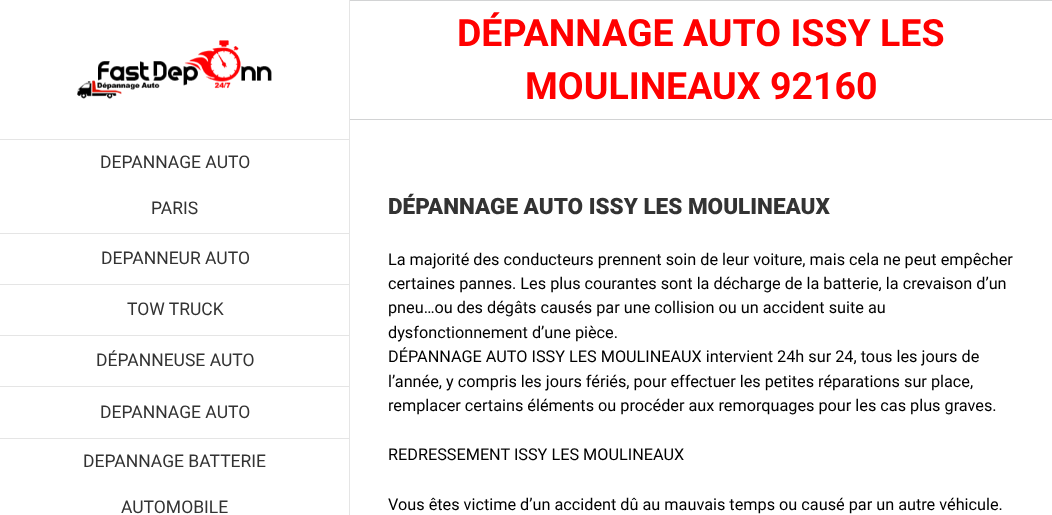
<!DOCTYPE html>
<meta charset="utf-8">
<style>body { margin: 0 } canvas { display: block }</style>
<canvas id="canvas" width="1052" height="515"></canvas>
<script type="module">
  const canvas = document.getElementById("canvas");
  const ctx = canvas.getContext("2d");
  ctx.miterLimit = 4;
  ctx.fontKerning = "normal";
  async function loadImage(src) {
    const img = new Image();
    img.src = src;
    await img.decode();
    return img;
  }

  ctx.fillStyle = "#ffffff";
  ctx.fillRect(0, 0, 1052, 515);
  ctx.fillStyle = "#d2d3d4";
  ctx.fillRect(350, 0, 702, 1);
  ctx.fillRect(350, 119, 702, 1);
  ctx.font = "bold 37.5px Roboto";
  ctx.fillStyle = "#ff0000";
  ctx.fillText("DÉPANNAGE AUTO ISSY LES", 457, 46);
  ctx.fillText("MOULINEAUX 92160", 525, 99);
  ctx.drawImage(await loadImage("img1.png"), 77, 40, 195, 59);
  ctx.fillStyle = "#e5e5e5";
  ctx.fillRect(349, 0, 1, 515);
  ctx.fillRect(0, 139, 350, 1);
  ctx.fillRect(0, 233, 350, 1);
  ctx.font = "17.5px Roboto";
  ctx.fillStyle = "#333333";
  ctx.fillText("DEPANNAGE AUTO", 100, 168);
  ctx.fillText("PARIS", 151, 214);
  ctx.fillStyle = "#e5e5e5";
  ctx.fillRect(0, 284, 350, 1);
  ctx.fillStyle = "#333333";
  ctx.fillText("DEPANNEUR AUTO", 101, 264);
  ctx.fillStyle = "#e5e5e5";
  ctx.fillRect(0, 335, 350, 1);
  ctx.fillStyle = "#333333";
  ctx.fillText("TOW TRUCK", 127, 315);
  ctx.fillStyle = "#e5e5e5";
  ctx.fillRect(0, 386, 350, 1);
  ctx.fillStyle = "#333333";
  ctx.fillText("DÉPANNEUSE AUTO", 96, 366);
  ctx.fillStyle = "#e5e5e5";
  ctx.fillRect(0, 438, 350, 1);
  ctx.fillStyle = "#333333";
  ctx.fillText("DEPANNAGE AUTO", 100, 418);
  ctx.fillText("DEPANNAGE BATTERIE", 83, 467);
  ctx.fillText("AUTOMOBILE", 121, 513);
  ctx.font = "900 22.5px Roboto";
  ctx.fillText("DÉPANNAGE AUTO ISSY LES MOULINEAUX", 388, 214);
  ctx.font = "16.25px Roboto";
  ctx.fillStyle = "#000000";
  ctx.fillText("La majorité des conducteurs prennent soin de leur voiture, mais cela ne peut empêcher", 388, 265);
  ctx.fillText("certaines pannes. Les plus courantes sont la décharge de la batterie, la crevaison d’un", 388, 289);
  ctx.fillText("pneu…ou des dégâts causés par une collision ou un accident suite au", 388, 313);
  ctx.fillText("dysfonctionnement d’une pièce.", 388, 338);
  ctx.fillText("DÉPANNAGE AUTO ISSY LES MOULINEAUX intervient 24h sur 24, tous les jours de", 388, 362);
  ctx.fillText("l’année, y compris les jours fériés, pour effectuer les petites réparations sur place,", 388, 387);
  ctx.fillText("remplacer certains éléments ou procéder aux remorquages pour les cas plus graves.", 388, 411);
  ctx.fillText("REDRESSEMENT ISSY LES MOULINEAUX", 388, 460);
  ctx.fillText("Vous êtes victime d’un accident dû au mauvais temps ou causé par un autre véhicule.", 388, 510);
</script>
